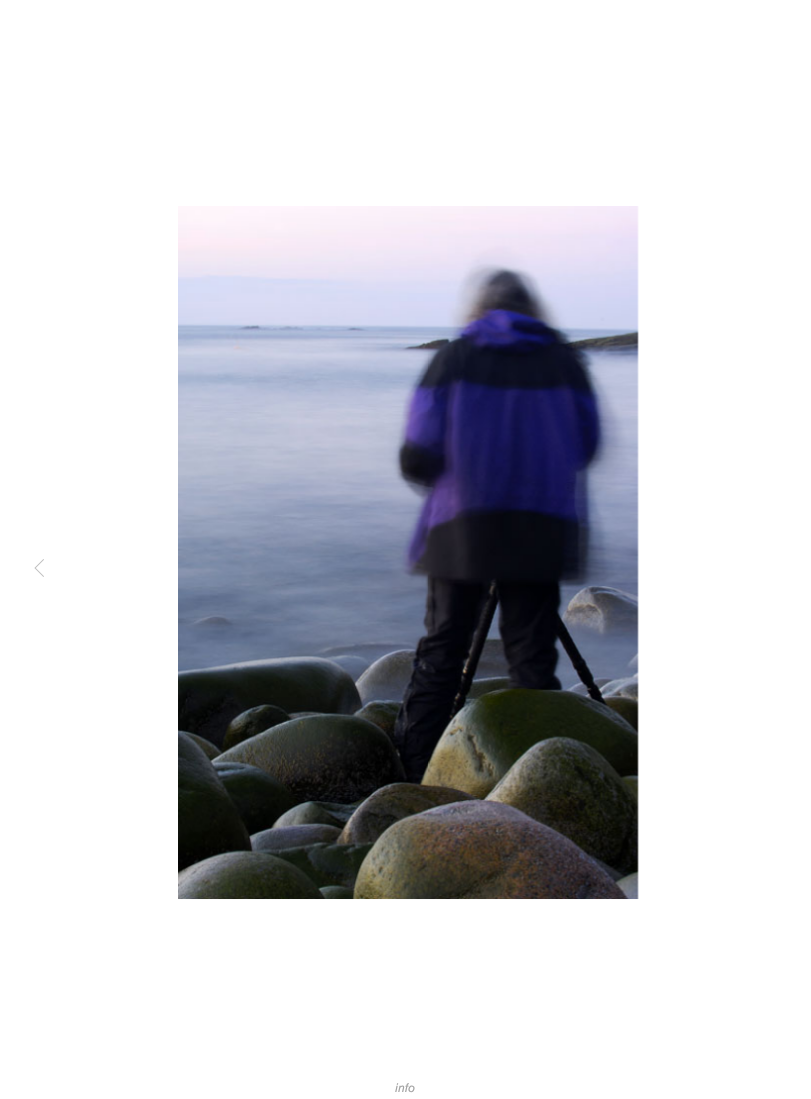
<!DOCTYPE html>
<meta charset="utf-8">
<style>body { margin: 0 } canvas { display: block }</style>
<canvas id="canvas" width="811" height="1099"></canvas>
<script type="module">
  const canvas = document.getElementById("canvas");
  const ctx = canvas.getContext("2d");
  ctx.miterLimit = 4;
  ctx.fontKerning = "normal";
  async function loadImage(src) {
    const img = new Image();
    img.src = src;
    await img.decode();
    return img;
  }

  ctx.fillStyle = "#ffffff";
  ctx.fillRect(0, 0, 811, 1099);
  ctx.drawImage(await loadImage("img1.png"), 34, 559, 10, 18);
  ctx.drawImage(await loadImage("img2.png"), 178, 206, 461, 694);
  ctx.font = "italic 13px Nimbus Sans";
  ctx.fillStyle = "#a3a3a3";
  ctx.fillText("info", 395, 1092);
</script>
